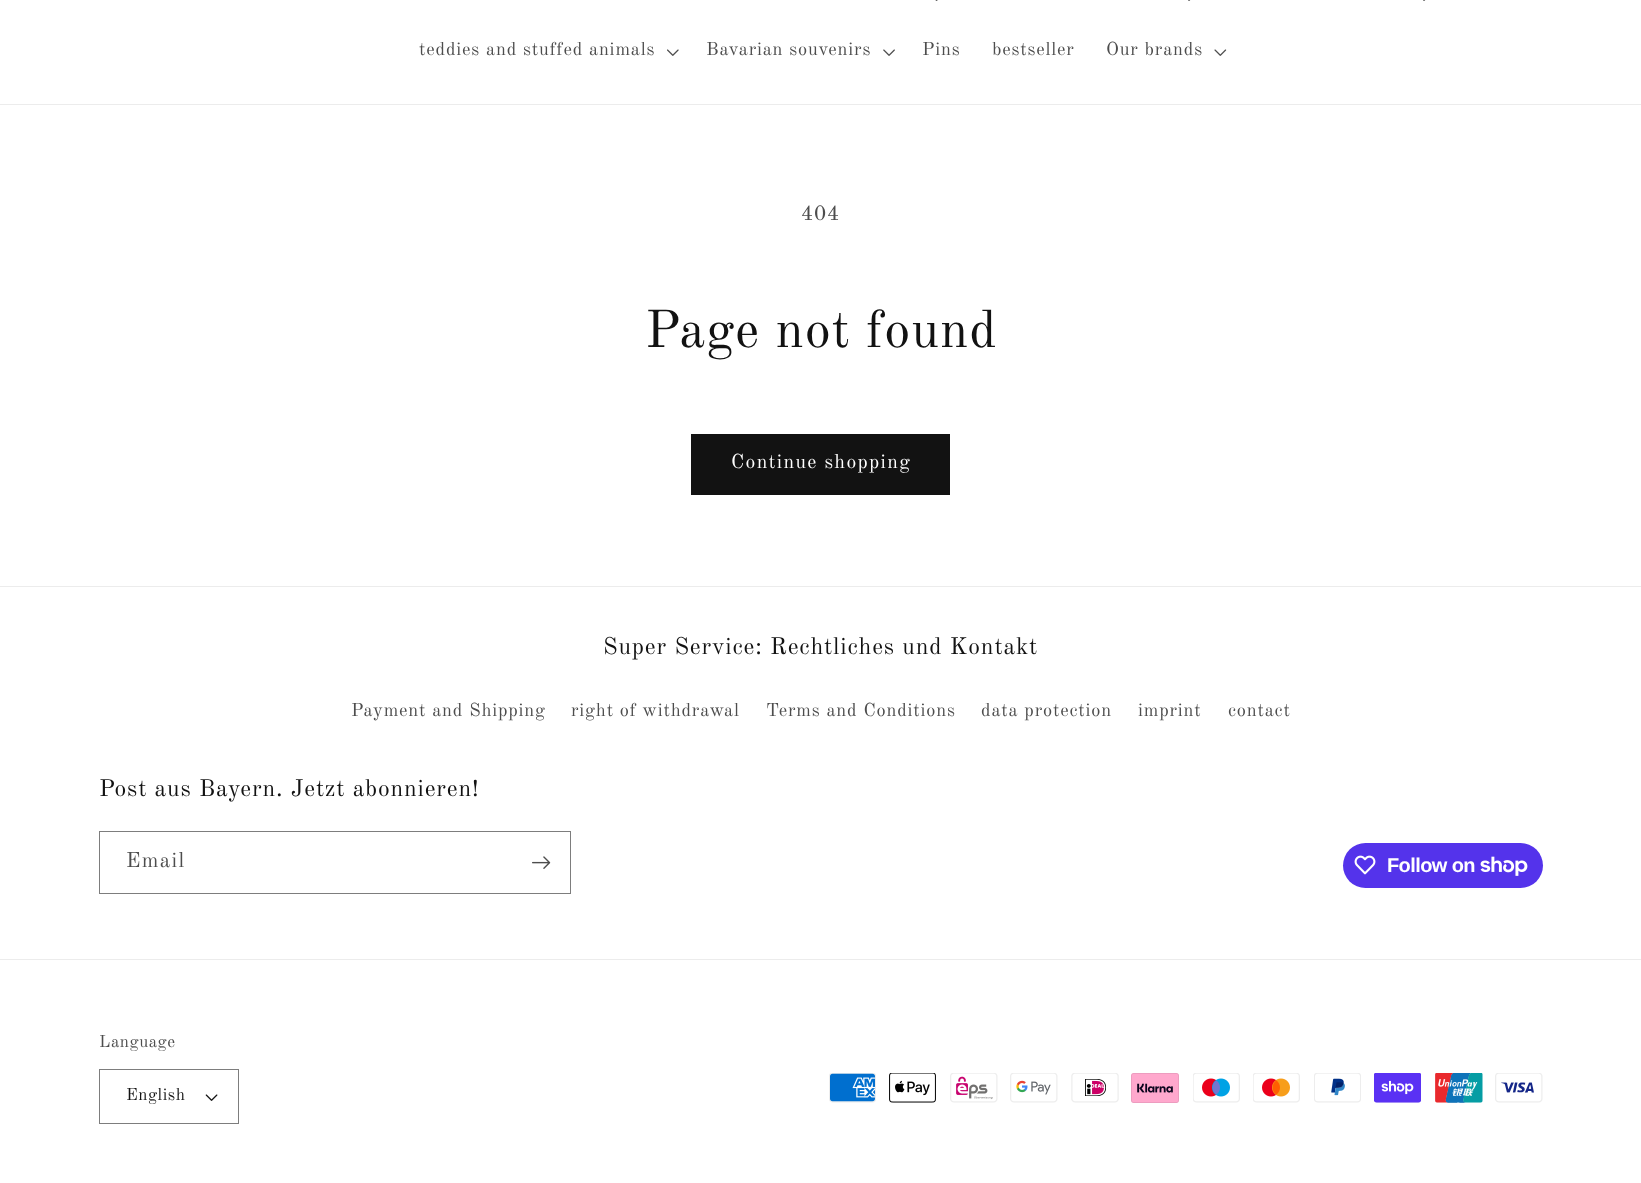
<!DOCTYPE html>
<meta charset="utf-8">
<style>body { margin: 0 } canvas { display: block }</style>
<canvas id="canvas" width="1641" height="1183"></canvas>
<script type="module">
  const canvas = document.getElementById("canvas");
  const ctx = canvas.getContext("2d");
  ctx.miterLimit = 4;
  ctx.fontKerning = "normal";
  async function loadImage(src) {
    const img = new Image();
    img.src = src;
    await img.decode();
    return img;
  }

  ctx.fillStyle = "#ffffff";
  ctx.fillRect(0, 0, 1641, 1183);
  ctx.fillStyle = "#ececec";
  ctx.fillRect(0, 104, 1641, 1);
  ctx.drawImage(await loadImage("img1.png"), 935, 0, 3, 1);
  ctx.drawImage(await loadImage("img2.png"), 1188, 0, 3, 1);
  ctx.drawImage(await loadImage("img2.png"), 1423, 0, 3, 1);
  ctx.letterSpacing = "0.8px";
  ctx.font = "18.4px Old Standard TT";
  ctx.fillStyle = "#4d4d4d";
  ctx.fillText("teddies and stuffed animals", 419, 55);
  ctx.drawImage(await loadImage("img3.png"), 667, 49, 12, 7);
  ctx.fillText("Bavarian souvenirs", 706, 55);
  ctx.drawImage(await loadImage("img4.png"), 883, 49, 12, 7);
  ctx.fillText("Pins", 922, 55);
  ctx.fillText("bestseller", 992, 55);
  ctx.fillText("Our brands", 1106, 55);
  ctx.drawImage(await loadImage("img5.png"), 1214, 49, 13, 7);
  ctx.font = "21px Old Standard TT";
  ctx.fillText("404", 801, 220);
  ctx.font = "52.5px Old Standard TT";
  ctx.fillStyle = "#121212";
  ctx.fillText("Page not found", 645, 347);
  ctx.fillRect(691, 434, 259, 61);
  ctx.letterSpacing = "1.3px";
  ctx.font = "19.75px Old Standard TT";
  ctx.fillStyle = "#ffffff";
  ctx.fillText("Continue shopping", 731, 468);
  ctx.fillStyle = "#ececec";
  ctx.fillRect(0, 586, 1641, 1);
  ctx.letterSpacing = "0.8px";
  ctx.font = "23.6px Old Standard TT";
  ctx.fillStyle = "#121212";
  ctx.fillText("Super Service: Rechtliches und Kontakt", 603, 654);
  ctx.font = "18.4px Old Standard TT";
  ctx.fillStyle = "#4d4d4d";
  ctx.fillText("Payment and Shipping", 351, 716);
  ctx.fillText("right of withdrawal", 571, 716);
  ctx.fillText("Terms and Conditions", 766, 716);
  ctx.fillText("data protection", 981, 716);
  ctx.fillText("imprint", 1138, 716);
  ctx.fillText("contact", 1228, 716);
  ctx.font = "23.6px Old Standard TT";
  ctx.fillStyle = "#121212";
  ctx.fillText("Post aus Bayern. Jetzt abonnieren!", 99, 796);
  ctx.strokeStyle = "#7d7d7d";
  ctx.strokeRect(99.5, 831.5, 471, 62);
  ctx.letterSpacing = "1.3px";
  ctx.font = "21px Old Standard TT";
  ctx.fillStyle = "#4d4d4d";
  ctx.fillText("Email", 126, 867);
  ctx.drawImage(await loadImage("img6.png"), 532, 856, 19, 13);
  ctx.fillStyle = "#5433eb";
  ctx.beginPath();
  ctx.roundRect(1343, 843, 200, 45, 22.5);
  ctx.fill();
  ctx.drawImage(await loadImage("img7.png"), 1354, 855, 22, 20);
  ctx.letterSpacing = "-0.6px";
  ctx.font = "bold 20px Liberation Sans";
  ctx.fillStyle = "#ffffff";
  ctx.fillText("Follow on", 1387, 872);
  ctx.drawImage(await loadImage("img8.png"), 1480, 856, 48, 20);
  ctx.fillStyle = "#ececec";
  ctx.fillRect(0, 959, 1641, 1);
  ctx.letterSpacing = "0.5px";
  ctx.font = "17px Old Standard TT";
  ctx.fillStyle = "#4d4d4d";
  ctx.fillText("Language", 99, 1047);
  ctx.drawImage(await loadImage("img9.png"), 205, 1094, 13, 7);
  ctx.strokeRect(99.5, 1069.5, 139, 54);
  ctx.fillStyle = "#121212";
  ctx.fillText("English", 126, 1100);
  ctx.drawImage(await loadImage("img10.png"), 829, 1073, 47, 30);
  ctx.drawImage(await loadImage("img11.png"), 889, 1073, 47, 30);
  ctx.drawImage(await loadImage("img12.png"), 950, 1073, 48, 30);
  ctx.drawImage(await loadImage("img13.png"), 1010, 1073, 48, 30);
  ctx.drawImage(await loadImage("img14.png"), 1071, 1073, 48, 30);
  ctx.drawImage(await loadImage("img15.png"), 1131, 1073, 48, 30);
  ctx.drawImage(await loadImage("img16.png"), 1193, 1073, 47, 30);
  ctx.drawImage(await loadImage("img17.png"), 1253, 1073, 47, 30);
  ctx.drawImage(await loadImage("img18.png"), 1314, 1073, 47, 30);
  ctx.drawImage(await loadImage("img19.png"), 1374, 1073, 47, 30);
  ctx.drawImage(await loadImage("img20.png"), 1435, 1073, 48, 30);
  ctx.drawImage(await loadImage("img21.png"), 1495, 1073, 48, 30);
</script>
